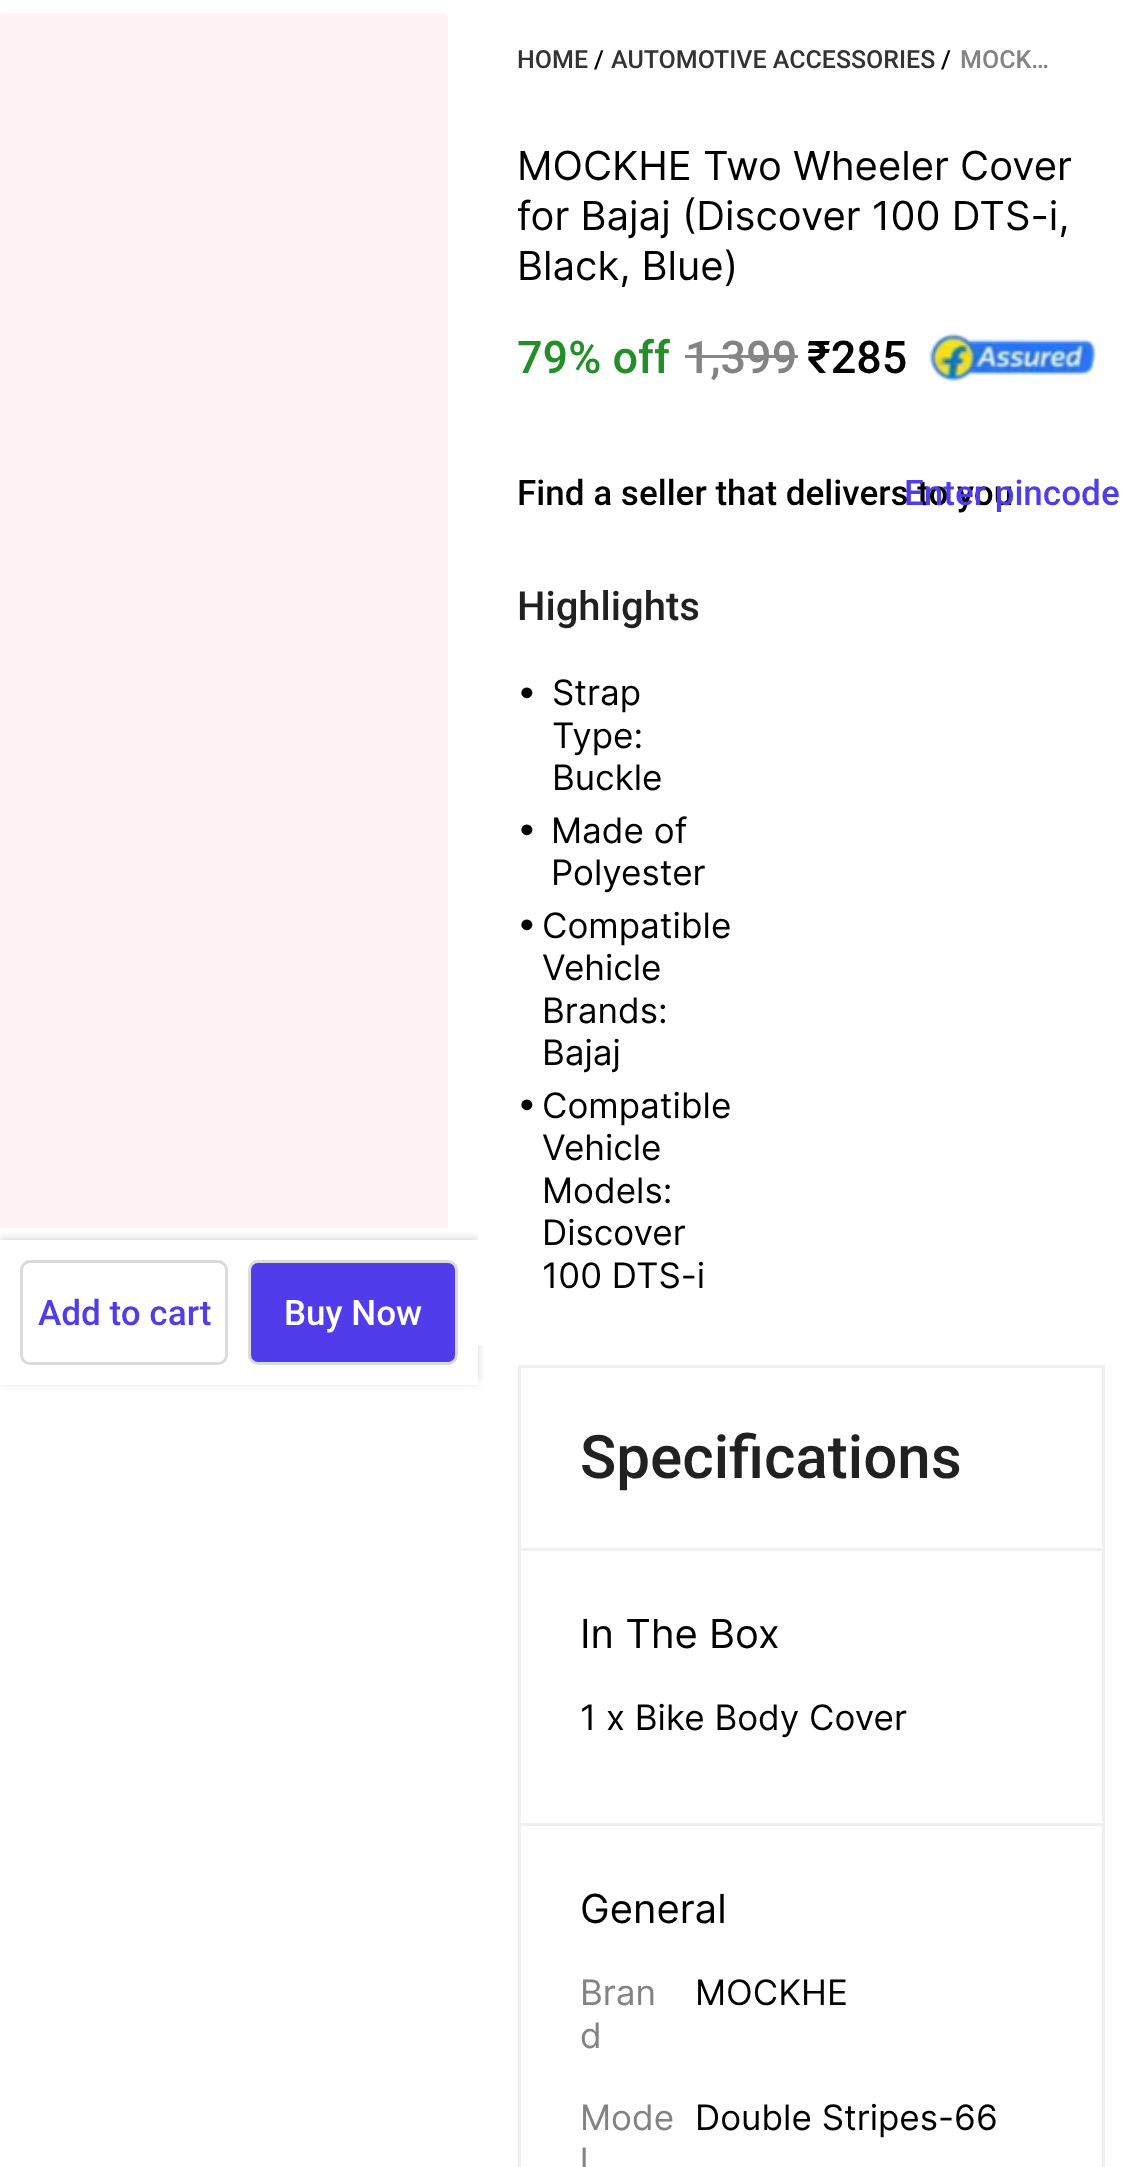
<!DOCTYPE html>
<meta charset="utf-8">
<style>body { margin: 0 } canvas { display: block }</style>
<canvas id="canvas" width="1144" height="2167"></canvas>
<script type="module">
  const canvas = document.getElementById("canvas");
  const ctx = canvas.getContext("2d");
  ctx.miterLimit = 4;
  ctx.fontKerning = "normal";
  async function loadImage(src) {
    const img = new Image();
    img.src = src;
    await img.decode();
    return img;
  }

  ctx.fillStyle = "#ffffff";
  ctx.fillRect(0, 0, 1144, 2167);
  ctx.fillStyle = "#fff3f6";
  ctx.beginPath();
  ctx.roundRect(0, 13, 448, 1215, 5);
  ctx.fill();
  ctx.save();
  ctx.beginPath();
  ctx.moveTo(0, 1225);
  ctx.lineTo(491, 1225);
  ctx.lineTo(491, 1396);
  ctx.lineTo(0, 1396);
  ctx.closePath();
  ctx.moveTo(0, 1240);
  ctx.lineTo(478, 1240);
  ctx.lineTo(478, 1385);
  ctx.lineTo(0, 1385);
  ctx.closePath();
  ctx.clip("evenodd");
  ctx.fillStyle = "rgba(0, 0, 0, 0.15)";
  ctx.filter = "blur(4px)";
  ctx.beginPath();
  ctx.rect(0, 1238, 478, 145);
  ctx.fill();
  ctx.filter = "none";
  ctx.restore();
  ctx.beginPath();
  ctx.roundRect(21.5, 1261.5, 205, 102, 8.5);
  ctx.strokeStyle = "#dbdbdb";
  ctx.lineWidth = 3;
  ctx.stroke();
  ctx.font = "500 35px Roboto";
  ctx.fillStyle = "#503ceb";
  ctx.fillText("Add to cart", 38, 1325);
  ctx.beginPath();
  ctx.roundRect(249.5, 1261.5, 207, 102, 8.5);
  ctx.fill();
  ctx.stroke();
  ctx.fillStyle = "#ffffff";
  ctx.fillText("Buy Now", 284, 1325);
  ctx.font = "500 25px Roboto";
  ctx.fillStyle = "#333333";
  ctx.fillText("HOME", 517, 68);
  ctx.fillStyle = "#000000";
  ctx.fillText("/", 594, 68);
  ctx.fillStyle = "#333333";
  ctx.fillText("AUTOMOTIVE ACCESSORIES", 611, 68);
  ctx.fillStyle = "#000000";
  ctx.fillText("/", 941, 68);
  ctx.fillStyle = "#838383";
  ctx.fillText("MOCK…", 960, 68);
  ctx.font = "40px Inter";
  ctx.fillStyle = "#000000";
  ctx.fillText("MOCKHE Two Wheeler Cover", 517, 180);
  ctx.fillText("for Bajaj (Discover 100 DTS-i,", 517, 230);
  ctx.fillText("Black, Blue)", 517, 280);
  ctx.font = "500 45px Roboto";
  ctx.fillStyle = "#228f28";
  ctx.fillText("79% off", 517, 373);
  ctx.fillStyle = "#838383";
  ctx.fillText("1,399", 685, 373);
  ctx.fillStyle = "#878787";
  ctx.fillRect(685, 355, 113, 3);
  ctx.fillStyle = "#000000";
  ctx.fillText("₹285", 807, 373);
  ctx.drawImage(await loadImage("img1.png"), 929, 333, 167, 50);
  ctx.font = "500 35px Roboto";
  ctx.fillText("Find a seller that delivers to you", 517, 505);
  ctx.fillStyle = "#503ceb";
  ctx.fillText("Enter pincode", 904, 505);
  ctx.fillStyle = "#ffffff";
  ctx.fillRect(478, 1234, 6, 111);
  ctx.font = "500 40px Roboto";
  ctx.fillStyle = "#212121";
  ctx.fillText("Highlights", 517, 620);
  ctx.font = "35px Inter";
  ctx.fillStyle = "#000000";
  ctx.fillText("•", 517, 703);
  ctx.fillText("Strap", 552, 705);
  ctx.fillText("Type:", 552, 748);
  ctx.fillText("Buckle", 552, 790);
  ctx.fillText("•", 517, 840);
  ctx.fillText("Made of", 551, 843);
  ctx.fillText("Polyester", 551, 885);
  ctx.fillText("•", 517, 935);
  ctx.fillText("Compatible", 542, 938);
  ctx.fillText("Vehicle", 542, 980);
  ctx.fillText("Brands:", 542, 1023);
  ctx.fillText("Bajaj", 542, 1065);
  ctx.fillText("•", 517, 1115);
  ctx.fillText("Compatible", 542, 1118);
  ctx.fillText("Vehicle", 542, 1160);
  ctx.fillText("Models:", 542, 1203);
  ctx.fillText("Discover", 542, 1245);
  ctx.fillText("100 DTS-i", 542, 1288);
  ctx.strokeStyle = "#f0f0f0";
  ctx.strokeRect(519.5, 1366.5, 584, 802);
  ctx.font = "500 60px Roboto";
  ctx.fillStyle = "#212121";
  ctx.fillText("Specifications", 580, 1478);
  ctx.fillStyle = "#f0f0f0";
  ctx.fillRect(520, 1548, 583, 3);
  ctx.font = "40px Inter";
  ctx.fillStyle = "#000000";
  ctx.fillText("In The Box", 580, 1648);
  ctx.font = "35px Inter";
  ctx.fillText("1 x Bike Body Cover", 580, 1730);
  ctx.fillStyle = "#f0f0f0";
  ctx.fillRect(520, 1823, 583, 3);
  ctx.font = "40px Inter";
  ctx.fillStyle = "#000000";
  ctx.fillText("General", 580, 1923);
  ctx.font = "35px Inter";
  ctx.fillStyle = "#838383";
  ctx.fillText("Bran", 580, 2005);
  ctx.fillText("d", 580, 2048);
  ctx.fillStyle = "#000000";
  ctx.fillText("MOCKHE", 695, 2005);
  ctx.fillStyle = "#838383";
  ctx.fillText("Mode", 580, 2130);
  ctx.fillText("l", 580, 2173);
  ctx.fillStyle = "#000000";
  ctx.fillText("Double Stripes-66", 695, 2130);
</script>
